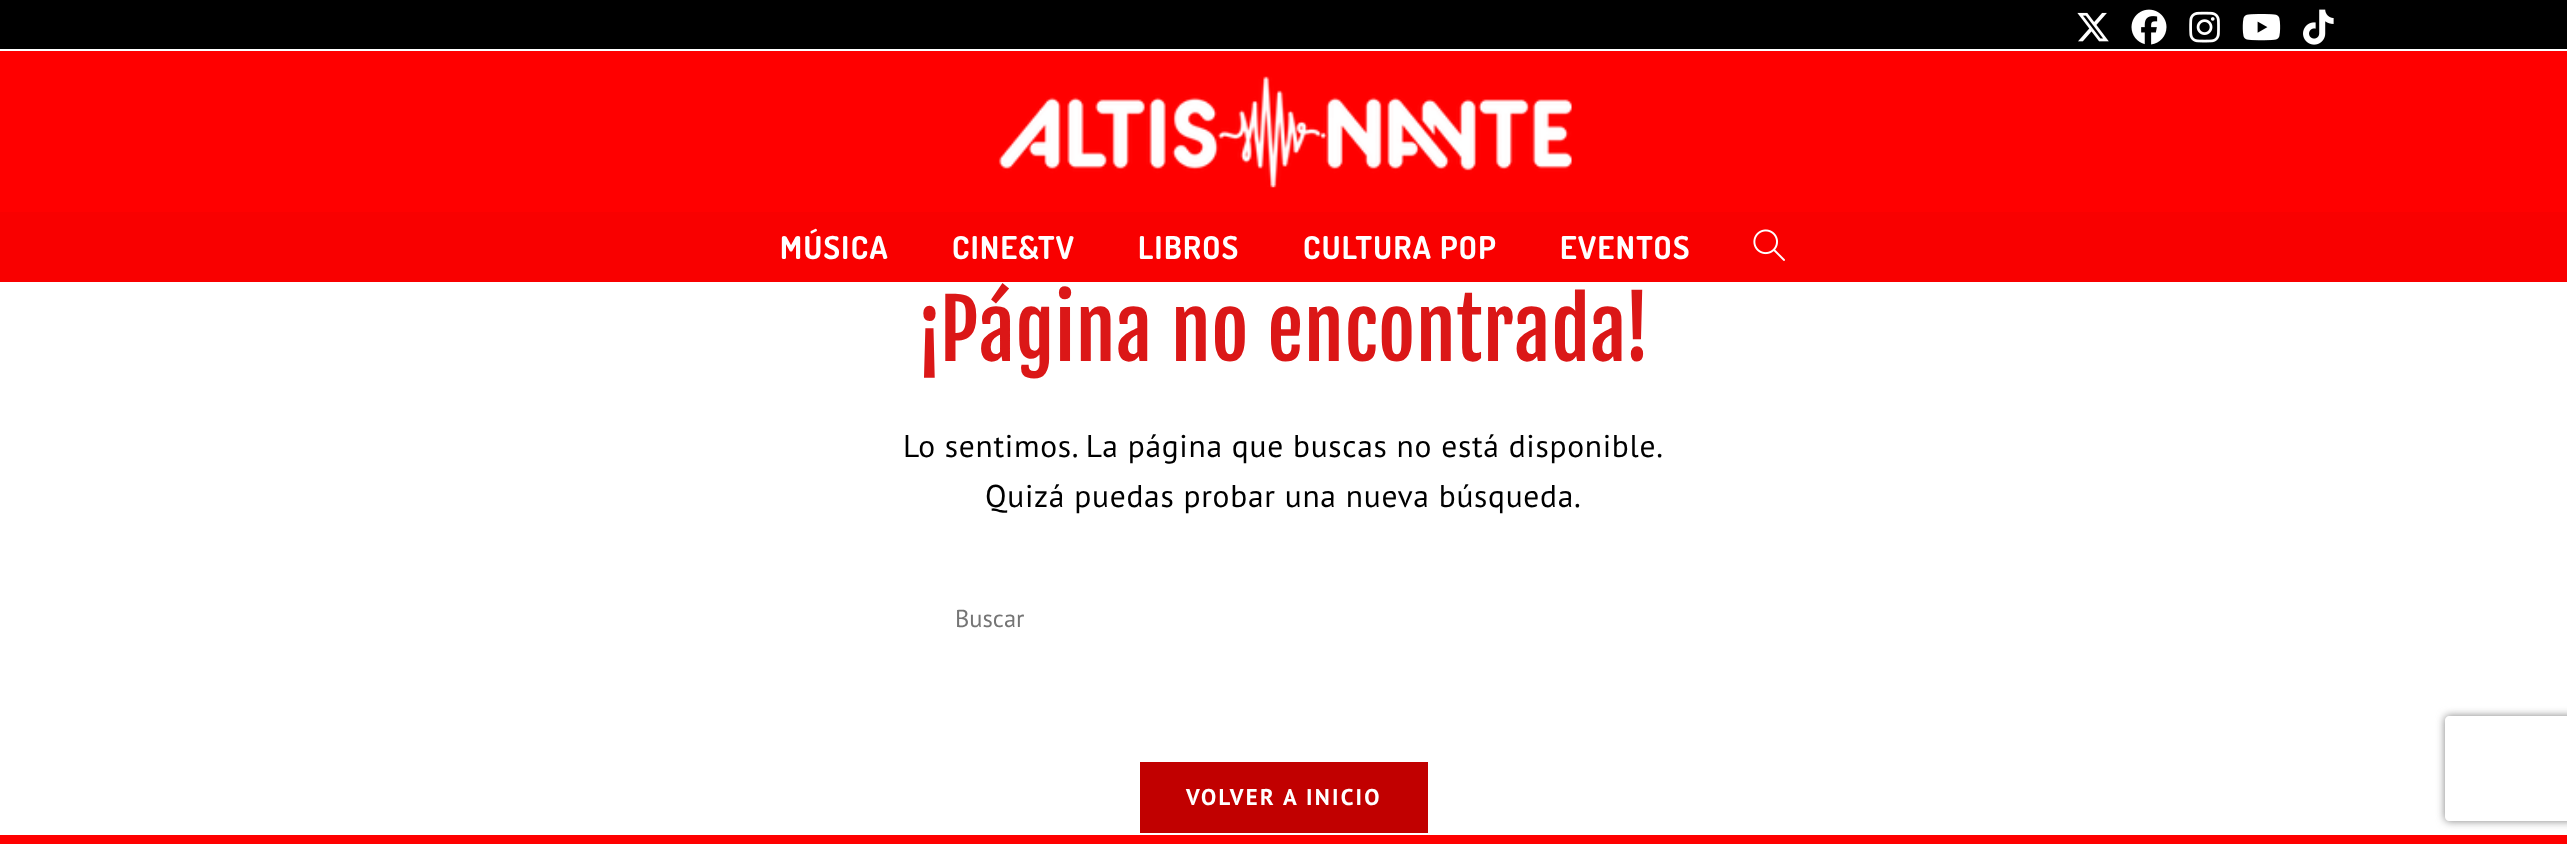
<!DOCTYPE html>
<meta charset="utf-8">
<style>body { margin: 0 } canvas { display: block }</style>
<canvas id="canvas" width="2567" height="844"></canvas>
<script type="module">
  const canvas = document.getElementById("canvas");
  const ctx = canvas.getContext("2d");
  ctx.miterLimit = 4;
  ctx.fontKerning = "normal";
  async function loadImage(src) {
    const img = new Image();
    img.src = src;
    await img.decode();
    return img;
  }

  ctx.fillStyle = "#ffffff";
  ctx.fillRect(0, 0, 2567, 844);
  ctx.fillStyle = "#000000";
  ctx.fillRect(0, 0, 2567, 49);
  ctx.drawImage(await loadImage("img1.png"), 2077, 12, 32, 30);
  ctx.drawImage(await loadImage("img2.png"), 2131, 9, 36, 36);
  ctx.drawImage(await loadImage("img3.png"), 2189, 11, 31, 32);
  ctx.drawImage(await loadImage("img4.png"), 2242, 14, 39, 27);
  ctx.drawImage(await loadImage("img5.png"), 2303, 9, 31, 36);
  ctx.fillStyle = "#ff0000";
  ctx.fillRect(0, 51, 2567, 161);
  ctx.drawImage(await loadImage("img6.png"), 998, 76, 574, 112);
  ctx.fillStyle = "#f90000";
  ctx.fillRect(0, 212, 2567, 70);
  ctx.letterSpacing = "1.4px";
  ctx.font = "bold 31.5px Dosis";
  ctx.fillStyle = "#ffffff";
  ctx.fillText("MÚSICA", 780, 259);
  ctx.fillText("CINE&TV", 952, 259);
  ctx.fillText("LIBROS", 1138, 259);
  ctx.fillText("CULTURA POP", 1303, 259);
  ctx.fillText("EVENTOS", 1560, 259);
  ctx.drawImage(await loadImage("img7.png"), 1753, 229, 32, 32);
  ctx.letterSpacing = "0.7px";
  ctx.font = "80.5px Fjalla One";
  ctx.fillStyle = "#db1717";
  ctx.fillText("¡Página no encontrada!", 916, 361);
  ctx.font = "31.5px PT Sans";
  ctx.fillStyle = "#000000";
  ctx.fillText("Lo sentimos. La página que buscas no está disponible.", 903, 457);
  ctx.fillText("Quizá puedas probar una nueva búsqueda.", 985, 507);
  ctx.letterSpacing = "0px";
  ctx.font = "24.5px PT Sans";
  ctx.fillStyle = "#757575";
  ctx.fillText("Buscar", 955, 627);
  ctx.fillStyle = "#c10000";
  ctx.fillRect(1140, 762, 288, 71);
  ctx.letterSpacing = "2.25px";
  ctx.font = "bold 22.75px PT Sans";
  ctx.fillStyle = "#ffffff";
  ctx.fillText("VOLVER A INICIO", 1186, 805);
  ctx.fillStyle = "#ff0000";
  ctx.fillRect(0, 835, 2567, 9);
  ctx.save();
  ctx.beginPath();
  ctx.moveTo(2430, 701);
  ctx.lineTo(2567, 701);
  ctx.lineTo(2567, 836);
  ctx.lineTo(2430, 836);
  ctx.closePath();
  ctx.moveTo(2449, 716);
  ctx.lineTo(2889, 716);
  ctx.bezierCurveTo(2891, 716, 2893, 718, 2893, 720);
  ctx.lineTo(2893, 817);
  ctx.bezierCurveTo(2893, 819, 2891, 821, 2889, 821);
  ctx.lineTo(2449, 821);
  ctx.bezierCurveTo(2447, 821, 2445, 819, 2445, 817);
  ctx.lineTo(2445, 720);
  ctx.bezierCurveTo(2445, 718, 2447, 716, 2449, 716);
  ctx.closePath();
  ctx.clip("evenodd");
  ctx.fillStyle = "#808080";
  ctx.filter = "blur(4.5px)";
  ctx.beginPath();
  ctx.roundRect(2445, 716, 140, 105, 4);
  ctx.fill();
  ctx.filter = "none";
  ctx.restore();
</script>
